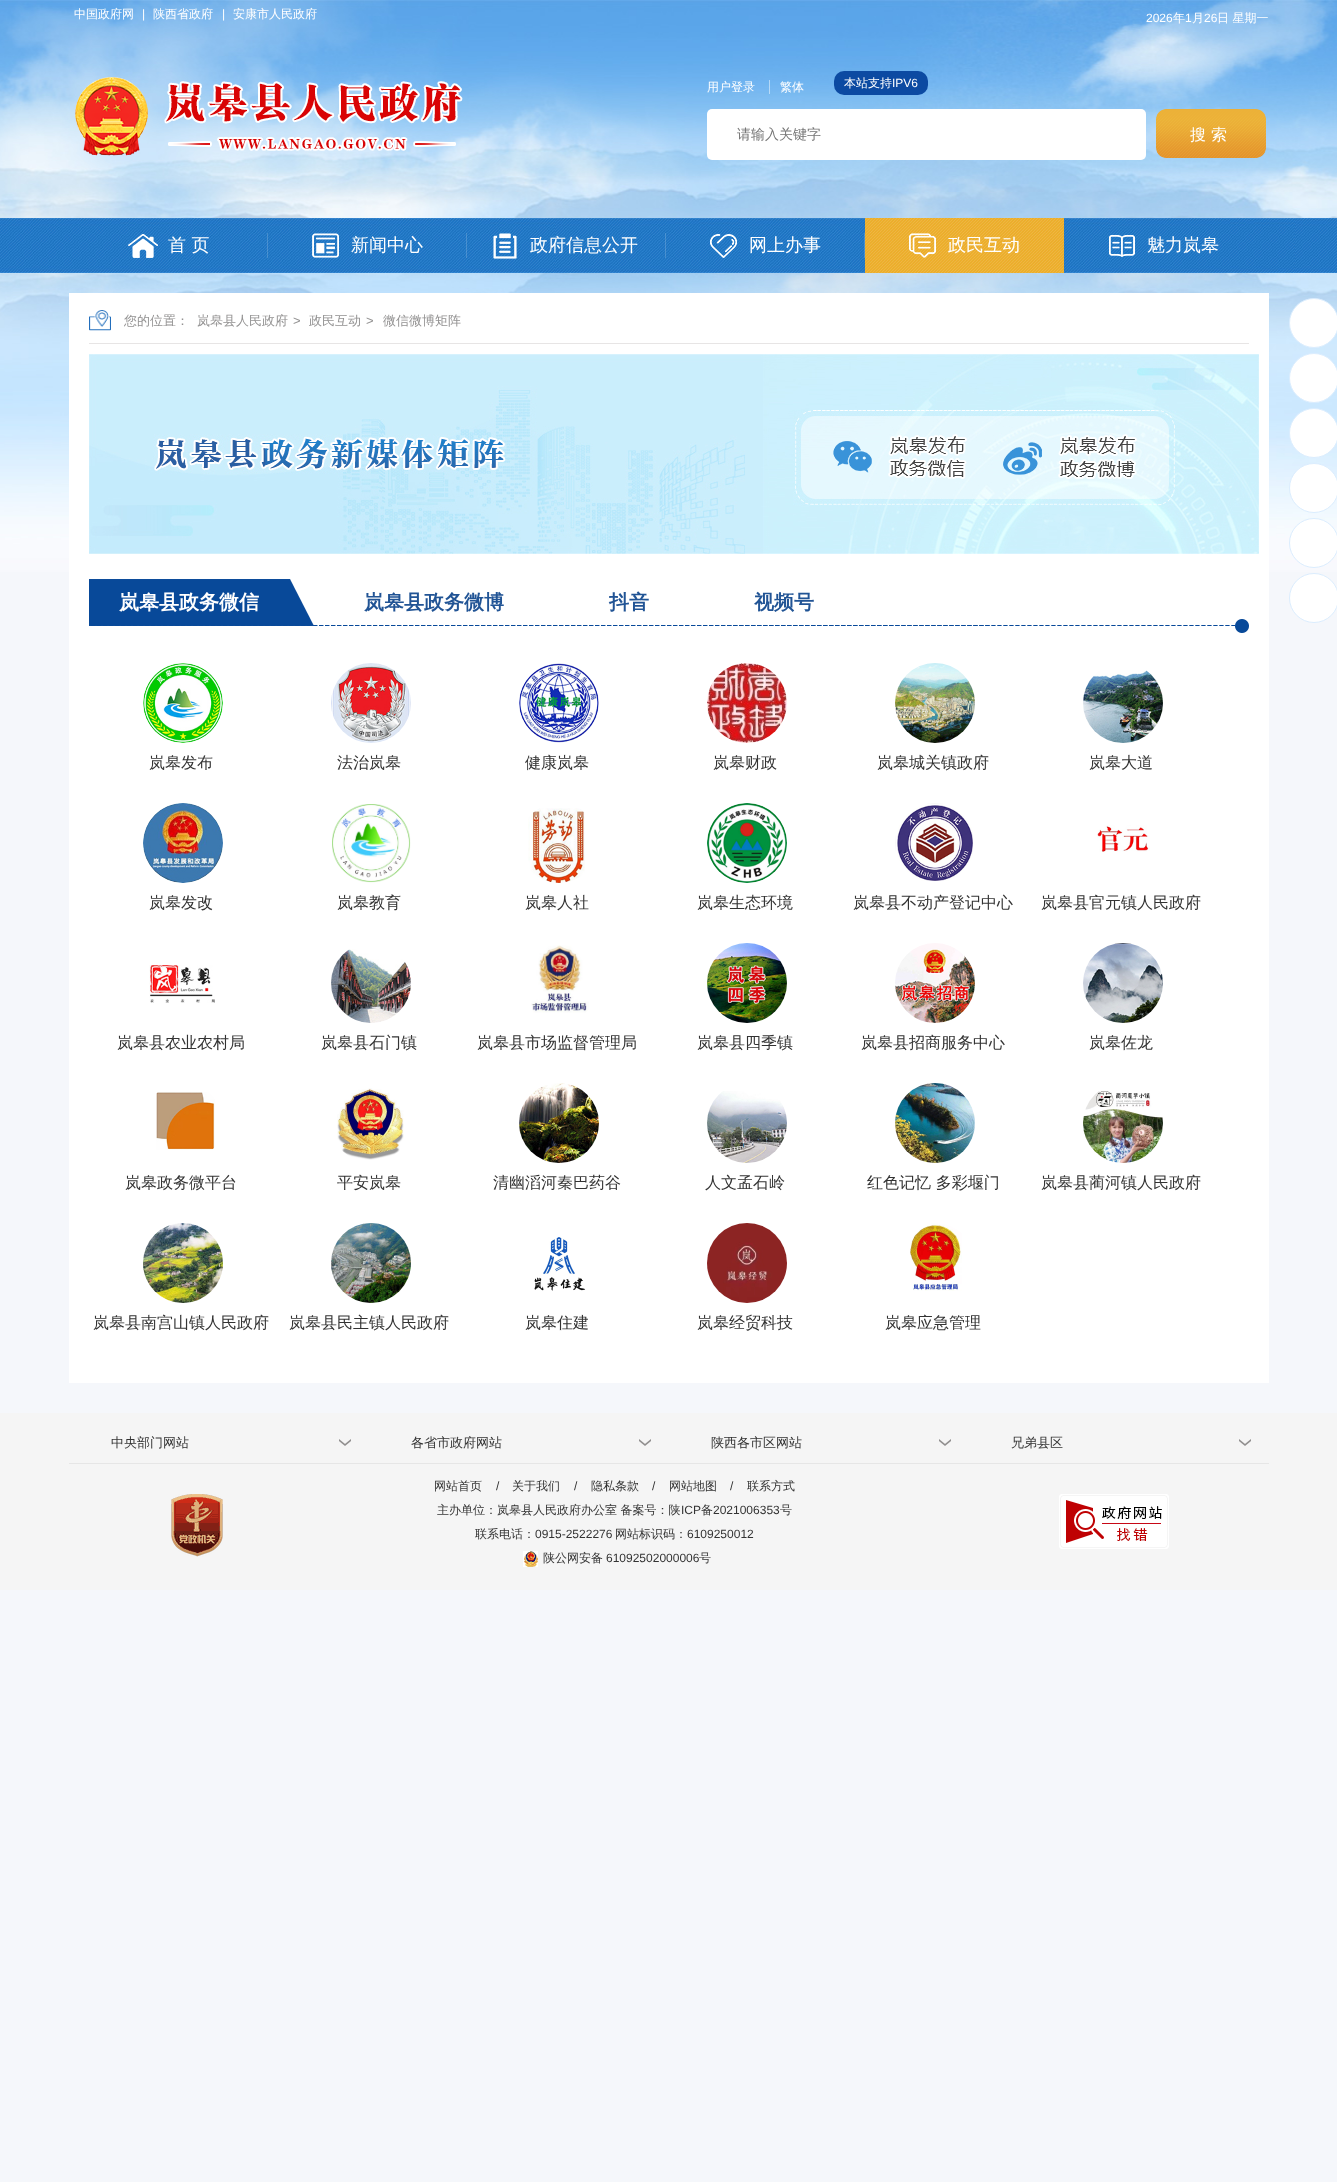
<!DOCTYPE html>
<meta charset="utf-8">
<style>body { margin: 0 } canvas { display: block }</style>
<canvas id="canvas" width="1337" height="2182"></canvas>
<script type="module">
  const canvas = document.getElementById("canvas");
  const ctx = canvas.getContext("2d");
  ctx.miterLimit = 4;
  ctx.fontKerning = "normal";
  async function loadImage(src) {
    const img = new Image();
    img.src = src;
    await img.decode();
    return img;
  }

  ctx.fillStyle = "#f5f7fb";
  ctx.fillRect(0, 0, 1337, 2182);
  ctx.drawImage(await loadImage("img1.png"), 0, 0, 1337, 572);
  ctx.font = "500 12px WenQuanYi Zen Hei";
  ctx.fillStyle = "#ffffff";
  ctx.fillText("中国政府网", 74, 18);
  ctx.font = "12px Liberation Sans";
  ctx.fillText("|", 142, 18);
  ctx.font = "500 12px WenQuanYi Zen Hei";
  ctx.fillText("陕西省政府", 153, 18);
  ctx.font = "12px Liberation Sans";
  ctx.fillText("|", 222, 18);
  ctx.font = "500 12px WenQuanYi Zen Hei";
  ctx.fillText("安康市人民政府", 233, 18);
  ctx.font = "12px Liberation Sans";
  ctx.fillText("2026", 1146, 22);
  ctx.font = "500 12px WenQuanYi Zen Hei";
  ctx.fillText("年", 1173, 22);
  ctx.font = "12px Liberation Sans";
  ctx.fillText("1", 1185, 22);
  ctx.font = "500 12px WenQuanYi Zen Hei";
  ctx.fillText("月", 1192, 22);
  ctx.font = "12px Liberation Sans";
  ctx.fillText("26", 1204, 22);
  ctx.font = "500 12px WenQuanYi Zen Hei";
  ctx.fillText("日 星期一", 1217, 22);
  ctx.drawImage(await loadImage("img2.png"), 75, 77, 388, 79);
  ctx.fillStyle = "rgba(255, 255, 255, 0.48)";
  ctx.fillRect(769, 80, 1, 14);
  ctx.fillStyle = "#ffffff";
  ctx.fillText("用户登录", 707, 91);
  ctx.fillText("繁体", 780, 91);
  ctx.fillStyle = "#0c4aa2";
  ctx.beginPath();
  ctx.roundRect(834, 71, 94, 24, 10);
  ctx.fill();
  ctx.fillStyle = "#ffffff";
  ctx.fillText("本站支持", 844, 87);
  ctx.font = "12px Liberation Sans";
  ctx.fillText("IPV6", 892, 87);
  ctx.beginPath();
  ctx.roundRect(707, 109, 439, 51, 5);
  ctx.fill();
  ctx.font = "500 14px WenQuanYi Zen Hei";
  ctx.fillStyle = "#757575";
  ctx.fillText("请输入关键字", 737, 139);
  ctx.drawImage(await loadImage("img3.png"), 1156, 109, 110, 49);
  ctx.letterSpacing = "5px";
  ctx.font = "500 16px WenQuanYi Zen Hei";
  ctx.fillStyle = "#ffffff";
  ctx.fillText("搜索", 1190, 140);
  ctx.drawImage(await loadImage("img4.png"), 0, 218, 1337, 55);
  ctx.fillStyle = "rgba(255, 255, 255, 0.17)";
  ctx.fillRect(267, 233, 1, 25);
  ctx.drawImage(await loadImage("img5.png"), 128, 234, 30, 24);
  ctx.letterSpacing = "0px";
  ctx.font = "500 18px WenQuanYi Zen Hei";
  ctx.fillStyle = "#ffffff";
  ctx.fillText("首 页", 168, 251);
  ctx.fillStyle = "rgba(255, 255, 255, 0.17)";
  ctx.fillRect(466, 233, 1, 25);
  ctx.drawImage(await loadImage("img6.png"), 312, 233, 27, 25);
  ctx.fillStyle = "#ffffff";
  ctx.fillText("新闻中心", 351, 251);
  ctx.fillStyle = "rgba(255, 255, 255, 0.17)";
  ctx.fillRect(665, 233, 1, 25);
  ctx.drawImage(await loadImage("img7.png"), 493, 233, 24, 26);
  ctx.fillStyle = "#ffffff";
  ctx.fillText("政府信息公开", 530, 251);
  ctx.fillStyle = "rgba(255, 255, 255, 0.17)";
  ctx.fillRect(864, 233, 1, 25);
  ctx.drawImage(await loadImage("img8.png"), 710, 234, 27, 24);
  ctx.fillStyle = "#ffffff";
  ctx.fillText("网上办事", 749, 251);
  ctx.drawImage(await loadImage("img9.png"), 865, 218, 199, 55);
  ctx.drawImage(await loadImage("img10.png"), 909, 233, 27, 25);
  ctx.fillText("政民互动", 948, 251);
  ctx.drawImage(await loadImage("img11.png"), 1109, 235, 26, 22);
  ctx.fillText("魅力岚皋", 1147, 251);
  ctx.fillRect(69, 293, 1200, 1090);
  ctx.drawImage(await loadImage("img12.png"), 89, 310, 22, 21);
  ctx.fillStyle = "#e7e5e5";
  ctx.fillRect(89, 343, 1160, 1);
  ctx.font = "500 13px WenQuanYi Zen Hei";
  ctx.fillStyle = "#939292";
  ctx.fillText("您的位置：", 124, 325);
  ctx.fillText("岚皋县人民政府", 197, 325);
  ctx.font = "13px Liberation Sans";
  ctx.fillText(">", 293, 325);
  ctx.font = "500 13px WenQuanYi Zen Hei";
  ctx.fillText("政民互动", 309, 325);
  ctx.font = "13px Liberation Sans";
  ctx.fillText(">", 366, 325);
  ctx.font = "500 13px WenQuanYi Zen Hei";
  ctx.fillText("微信微博矩阵", 383, 325);
  ctx.drawImage(await loadImage("img13.png"), 89, 354, 1170, 200);
  ctx.drawImage(await loadImage("img14.png"), 833, 434, 134, 45);
  ctx.drawImage(await loadImage("img15.png"), 1003, 434, 134, 45);
  ctx.drawImage(await loadImage("img16.png"), 89, 619, 1160, 14);
  ctx.drawImage(await loadImage("img17.png"), 89, 579, 225, 47);
  ctx.font = "bold 20px WenQuanYi Zen Hei";
  ctx.fillStyle = "#ffffff";
  ctx.fillText("岚皋县政务微信", 119, 609);
  ctx.fillStyle = "#215495";
  ctx.fillText("岚皋县政务微博", 364, 609);
  ctx.fillText("抖音", 609, 609);
  ctx.fillText("视频号", 754, 609);
  ctx.drawImage(await loadImage("img18.png"), 143, 663, 80, 80);
  ctx.font = "500 16px WenQuanYi Zen Hei";
  ctx.fillStyle = "#333333";
  ctx.fillText("岚皋发布", 149, 768);
  ctx.drawImage(await loadImage("img19.png"), 331, 663, 80, 80);
  ctx.fillText("法治岚皋", 337, 768);
  ctx.drawImage(await loadImage("img20.png"), 519, 663, 80, 80);
  ctx.fillText("健康岚皋", 525, 768);
  ctx.drawImage(await loadImage("img21.png"), 707, 663, 80, 80);
  ctx.fillText("岚皋财政", 713, 768);
  ctx.drawImage(await loadImage("img22.png"), 895, 663, 80, 80);
  ctx.fillText("岚皋城关镇政府", 877, 768);
  ctx.drawImage(await loadImage("img23.png"), 1083, 670, 80, 73);
  ctx.fillText("岚皋大道", 1089, 768);
  ctx.drawImage(await loadImage("img24.png"), 143, 803, 80, 80);
  ctx.fillText("岚皋发改", 149, 908);
  ctx.drawImage(await loadImage("img25.png"), 332, 804, 79, 79);
  ctx.fillText("岚皋教育", 337, 908);
  ctx.drawImage(await loadImage("img26.png"), 528, 808, 57, 75);
  ctx.fillText("岚皋人社", 525, 908);
  ctx.drawImage(await loadImage("img27.png"), 707, 803, 80, 80);
  ctx.fillText("岚皋生态环境", 697, 908);
  ctx.drawImage(await loadImage("img28.png"), 895, 803, 78, 78);
  ctx.fillText("岚皋县不动产登记中心", 853, 908);
  ctx.drawImage(await loadImage("img29.png"), 1097, 825, 53, 27);
  ctx.fillText("岚皋县官元镇人民政府", 1041, 908);
  ctx.drawImage(await loadImage("img30.png"), 149, 965, 66, 38);
  ctx.fillText("岚皋县农业农村局", 117, 1048);
  ctx.drawImage(await loadImage("img31.png"), 331, 949, 80, 74);
  ctx.fillText("岚皋县石门镇", 321, 1048);
  ctx.drawImage(await loadImage("img32.png"), 531, 945, 58, 68);
  ctx.fillText("岚皋县市场监督管理局", 477, 1048);
  ctx.drawImage(await loadImage("img33.png"), 707, 943, 80, 80);
  ctx.fillText("岚皋县四季镇", 697, 1048);
  ctx.drawImage(await loadImage("img34.png"), 895, 943, 80, 80);
  ctx.fillText("岚皋县招商服务中心", 861, 1048);
  ctx.drawImage(await loadImage("img35.png"), 1083, 943, 80, 80);
  ctx.fillText("岚皋佐龙", 1089, 1048);
  ctx.drawImage(await loadImage("img36.png"), 156, 1092, 59, 58);
  ctx.fillText("岚皋政务微平台", 125, 1188);
  ctx.drawImage(await loadImage("img37.png"), 337, 1088, 67, 72);
  ctx.fillText("平安岚皋", 337, 1188);
  ctx.drawImage(await loadImage("img38.png"), 519, 1083, 80, 80);
  ctx.fillText("清幽滔河秦巴药谷", 493, 1188);
  ctx.drawImage(await loadImage("img39.png"), 707, 1091, 80, 72);
  ctx.fillText("人文孟石岭", 705, 1188);
  ctx.drawImage(await loadImage("img40.png"), 895, 1083, 80, 80);
  ctx.fillText("红色记忆 多彩堰门", 867, 1188);
  ctx.drawImage(await loadImage("img41.png"), 1083, 1091, 80, 72);
  ctx.fillText("岚皋县蔺河镇人民政府", 1041, 1188);
  ctx.drawImage(await loadImage("img42.png"), 143, 1223, 80, 80);
  ctx.fillText("岚皋县南宫山镇人民政府", 93, 1328);
  ctx.drawImage(await loadImage("img43.png"), 331, 1223, 80, 80);
  ctx.fillText("岚皋县民主镇人民政府", 289, 1328);
  ctx.drawImage(await loadImage("img44.png"), 534, 1237, 52, 54);
  ctx.fillText("岚皋住建", 525, 1328);
  ctx.drawImage(await loadImage("img45.png"), 707, 1223, 80, 80);
  ctx.fillText("岚皋经贸科技", 697, 1328);
  ctx.drawImage(await loadImage("img46.png"), 910, 1223, 52, 68);
  ctx.fillText("岚皋应急管理", 885, 1328);
  ctx.fillStyle = "#ffffff";
  ctx.beginPath();
  ctx.arc(1314, 323, 24.5, 0, Math.PI * 2);
  ctx.fill();
  ctx.strokeStyle = "#dbedfe";
  ctx.stroke();
  ctx.beginPath();
  ctx.arc(1314, 378, 24.5, 0, Math.PI * 2);
  ctx.fill();
  ctx.stroke();
  ctx.beginPath();
  ctx.arc(1314, 433, 24.5, 0, Math.PI * 2);
  ctx.fill();
  ctx.stroke();
  ctx.beginPath();
  ctx.arc(1314, 488, 24.5, 0, Math.PI * 2);
  ctx.fill();
  ctx.stroke();
  ctx.beginPath();
  ctx.arc(1314, 543, 24.5, 0, Math.PI * 2);
  ctx.fill();
  ctx.stroke();
  ctx.beginPath();
  ctx.arc(1314, 598, 24.5, 0, Math.PI * 2);
  ctx.fill();
  ctx.stroke();
  ctx.fillStyle = "#f5f5f5";
  ctx.fillRect(0, 1413, 1337, 177);
  ctx.fillStyle = "#e6e6e6";
  ctx.fillRect(69, 1463, 1200, 1);
  ctx.drawImage(await loadImage("img47.png"), 339, 1439, 12, 7);
  ctx.font = "500 13px WenQuanYi Zen Hei";
  ctx.fillStyle = "#333333";
  ctx.fillText("中央部门网站", 111, 1447);
  ctx.drawImage(await loadImage("img47.png"), 639, 1439, 12, 7);
  ctx.fillText("各省市政府网站", 411, 1447);
  ctx.drawImage(await loadImage("img47.png"), 939, 1439, 12, 7);
  ctx.fillText("陕西各市区网站", 711, 1447);
  ctx.drawImage(await loadImage("img47.png"), 1239, 1439, 12, 7);
  ctx.fillText("兄弟县区", 1011, 1447);
  ctx.drawImage(await loadImage("img48.png"), 171, 1494, 52, 63);
  ctx.font = "500 12px WenQuanYi Zen Hei";
  ctx.fillText("网站首页", 434, 1490);
  ctx.font = "12px Liberation Sans";
  ctx.fillText("/", 496, 1490);
  ctx.font = "500 12px WenQuanYi Zen Hei";
  ctx.fillText("关于我们", 512, 1490);
  ctx.font = "12px Liberation Sans";
  ctx.fillText("/", 574, 1490);
  ctx.font = "500 12px WenQuanYi Zen Hei";
  ctx.fillText("隐私条款", 591, 1490);
  ctx.font = "12px Liberation Sans";
  ctx.fillText("/", 652, 1490);
  ctx.font = "500 12px WenQuanYi Zen Hei";
  ctx.fillText("网站地图", 669, 1490);
  ctx.font = "12px Liberation Sans";
  ctx.fillText("/", 730, 1490);
  ctx.font = "500 12px WenQuanYi Zen Hei";
  ctx.fillText("联系方式", 747, 1490);
  ctx.fillText("主办单位：岚皋县人民政府办公室 备案号：陕", 437, 1514);
  ctx.font = "12px Liberation Sans";
  ctx.fillText("ICP", 681, 1514);
  ctx.font = "500 12px WenQuanYi Zen Hei";
  ctx.fillText("备", 701, 1514);
  ctx.font = "12px Liberation Sans";
  ctx.fillText("2021006353", 713, 1514);
  ctx.font = "500 12px WenQuanYi Zen Hei";
  ctx.fillText("号", 780, 1514);
  ctx.fillText("联系电话：", 475, 1538);
  ctx.font = "12px Liberation Sans";
  ctx.fillText("0915-2522276", 535, 1538);
  ctx.font = "500 12px WenQuanYi Zen Hei";
  ctx.fillText("网站标识码：", 615, 1538);
  ctx.font = "12px Liberation Sans";
  ctx.fillText("6109250012", 687, 1538);
  ctx.drawImage(await loadImage("img49.png"), 523, 1551, 15, 16);
  ctx.font = "500 12px WenQuanYi Zen Hei";
  ctx.fillText("陕公网安备", 543, 1562);
  ctx.font = "12px Liberation Sans";
  ctx.fillText("61092502000006", 606, 1562);
  ctx.font = "500 12px WenQuanYi Zen Hei";
  ctx.fillText("号", 699, 1562);
  ctx.drawImage(await loadImage("img50.png"), 1059, 1494, 110, 55);
</script>
